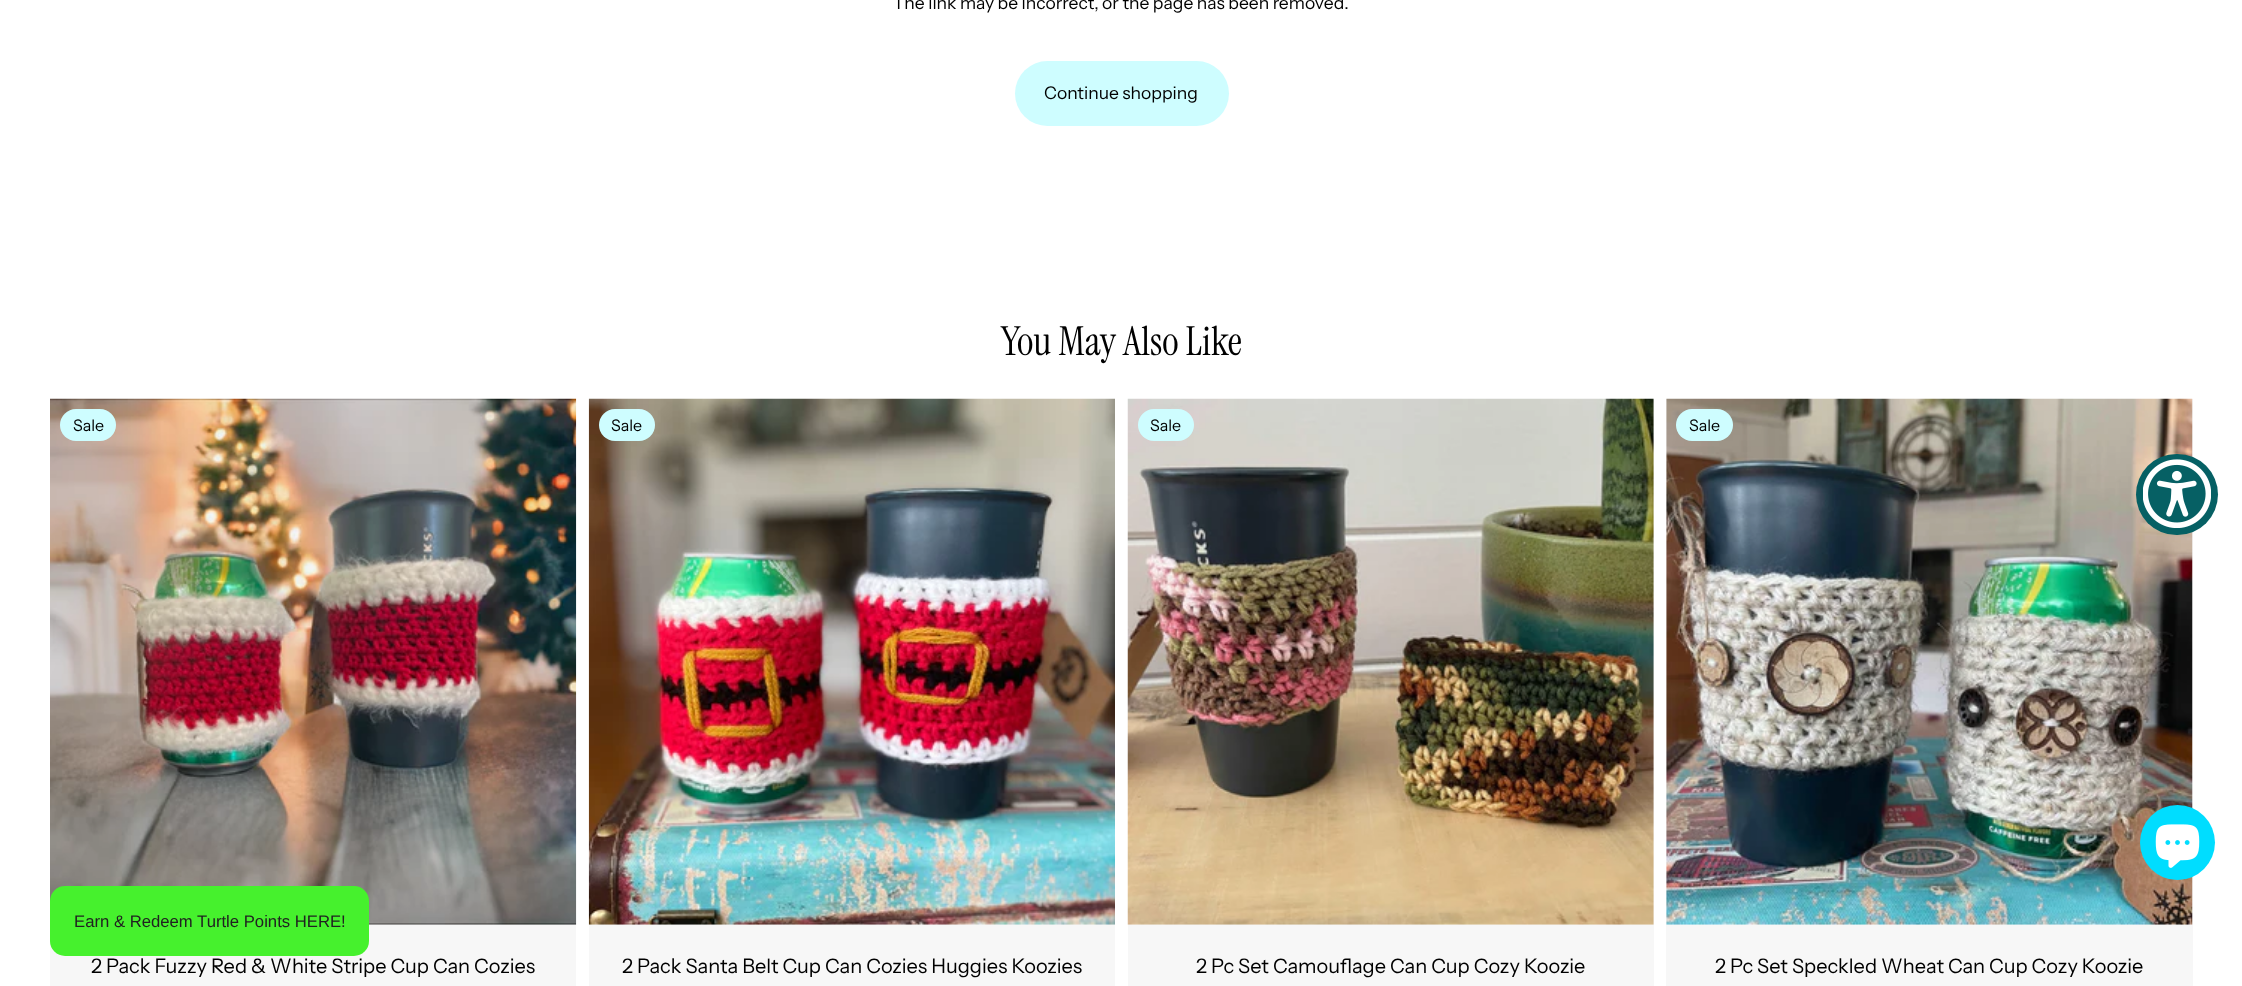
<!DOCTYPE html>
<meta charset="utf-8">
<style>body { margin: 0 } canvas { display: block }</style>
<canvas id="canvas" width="2242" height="986"></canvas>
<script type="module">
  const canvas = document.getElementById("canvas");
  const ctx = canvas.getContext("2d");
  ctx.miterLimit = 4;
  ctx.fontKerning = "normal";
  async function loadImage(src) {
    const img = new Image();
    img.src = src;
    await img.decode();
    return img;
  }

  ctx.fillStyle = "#ffffff";
  ctx.fillRect(0, 0, 2242, 986);
  ctx.font = "17.5px Instrument Sans";
  ctx.fillStyle = "#000000";
  ctx.fillText("The link may be incorrect, or the page has been removed.", 893, 9);
  ctx.fillStyle = "#cefdff";
  ctx.beginPath();
  ctx.roundRect(1015, 61, 214, 65, 32.5);
  ctx.fill();
  ctx.fillStyle = "#000000";
  ctx.fillText("Continue shopping", 1044, 99);
  ctx.font = "40px Instrument Serif";
  ctx.fillText("You May Also Like", 1001, 355);
  ctx.fillStyle = "#f7f7f7";
  ctx.fillRect(50, 924, 526, 62);
  ctx.drawImage(await loadImage("img1.png"), 50, 398, 527, 527);
  ctx.fillStyle = "#cefdff";
  ctx.beginPath();
  ctx.roundRect(60, 409, 56, 32, 16);
  ctx.fill();
  ctx.font = "16px Instrument Sans";
  ctx.fillStyle = "#000000";
  ctx.fillText("Sale", 73, 431);
  ctx.font = "20px Instrument Sans";
  ctx.fillText("2 Pack Fuzzy Red & White Stripe Cup Can Cozies", 91, 973);
  ctx.fillStyle = "#f7f7f7";
  ctx.fillRect(589, 924, 526, 62);
  ctx.drawImage(await loadImage("img2.png"), 588, 398, 527, 527);
  ctx.fillStyle = "#cefdff";
  ctx.beginPath();
  ctx.roundRect(599, 409, 56, 32, 16);
  ctx.fill();
  ctx.font = "16px Instrument Sans";
  ctx.fillStyle = "#000000";
  ctx.fillText("Sale", 611, 431);
  ctx.font = "20px Instrument Sans";
  ctx.fillText("2 Pack Santa Belt Cup Can Cozies Huggies Koozies", 622, 973);
  ctx.fillStyle = "#f7f7f7";
  ctx.fillRect(1128, 399, 526, 587);
  ctx.drawImage(await loadImage("img3.png"), 1127, 398, 527, 527);
  ctx.fillStyle = "#cefdff";
  ctx.beginPath();
  ctx.roundRect(1138, 409, 56, 32, 16);
  ctx.fill();
  ctx.font = "16px Instrument Sans";
  ctx.fillStyle = "#000000";
  ctx.fillText("Sale", 1150, 431);
  ctx.font = "20px Instrument Sans";
  ctx.fillText("2 Pc Set Camouflage Can Cup Cozy Koozie", 1196, 973);
  ctx.fillStyle = "#f7f7f7";
  ctx.fillRect(1666, 399, 527, 587);
  ctx.drawImage(await loadImage("img4.png"), 1666, 398, 527, 527);
  ctx.fillStyle = "#cefdff";
  ctx.beginPath();
  ctx.roundRect(1676, 409, 57, 32, 16);
  ctx.fill();
  ctx.font = "16px Instrument Sans";
  ctx.fillStyle = "#000000";
  ctx.fillText("Sale", 1689, 431);
  ctx.font = "20px Instrument Sans";
  ctx.fillText("2 Pc Set Speckled Wheat Can Cup Cozy Koozie", 1715, 973);
  ctx.fillStyle = "#066064";
  ctx.beginPath();
  ctx.roundRect(2136, 454, 82, 81, 40.5);
  ctx.fill();
  ctx.drawImage(await loadImage("img5.png"), 2143, 459, 68, 69);
  ctx.fillStyle = "#00ddff";
  ctx.beginPath();
  ctx.arc(2177.5, 842.5, 37.5, 0, Math.PI * 2);
  ctx.fill();
  ctx.drawImage(await loadImage("img6.png"), 2155, 824, 45, 44);
  ctx.fillStyle = "#46f12d";
  ctx.beginPath();
  ctx.roundRect(50, 886, 319, 70, 15);
  ctx.fill();
  ctx.font = "16.7px Liberation Sans";
  ctx.fillStyle = "#212121";
  ctx.fillText("Earn & Redeem Turtle Points HERE!", 74, 927);
</script>
